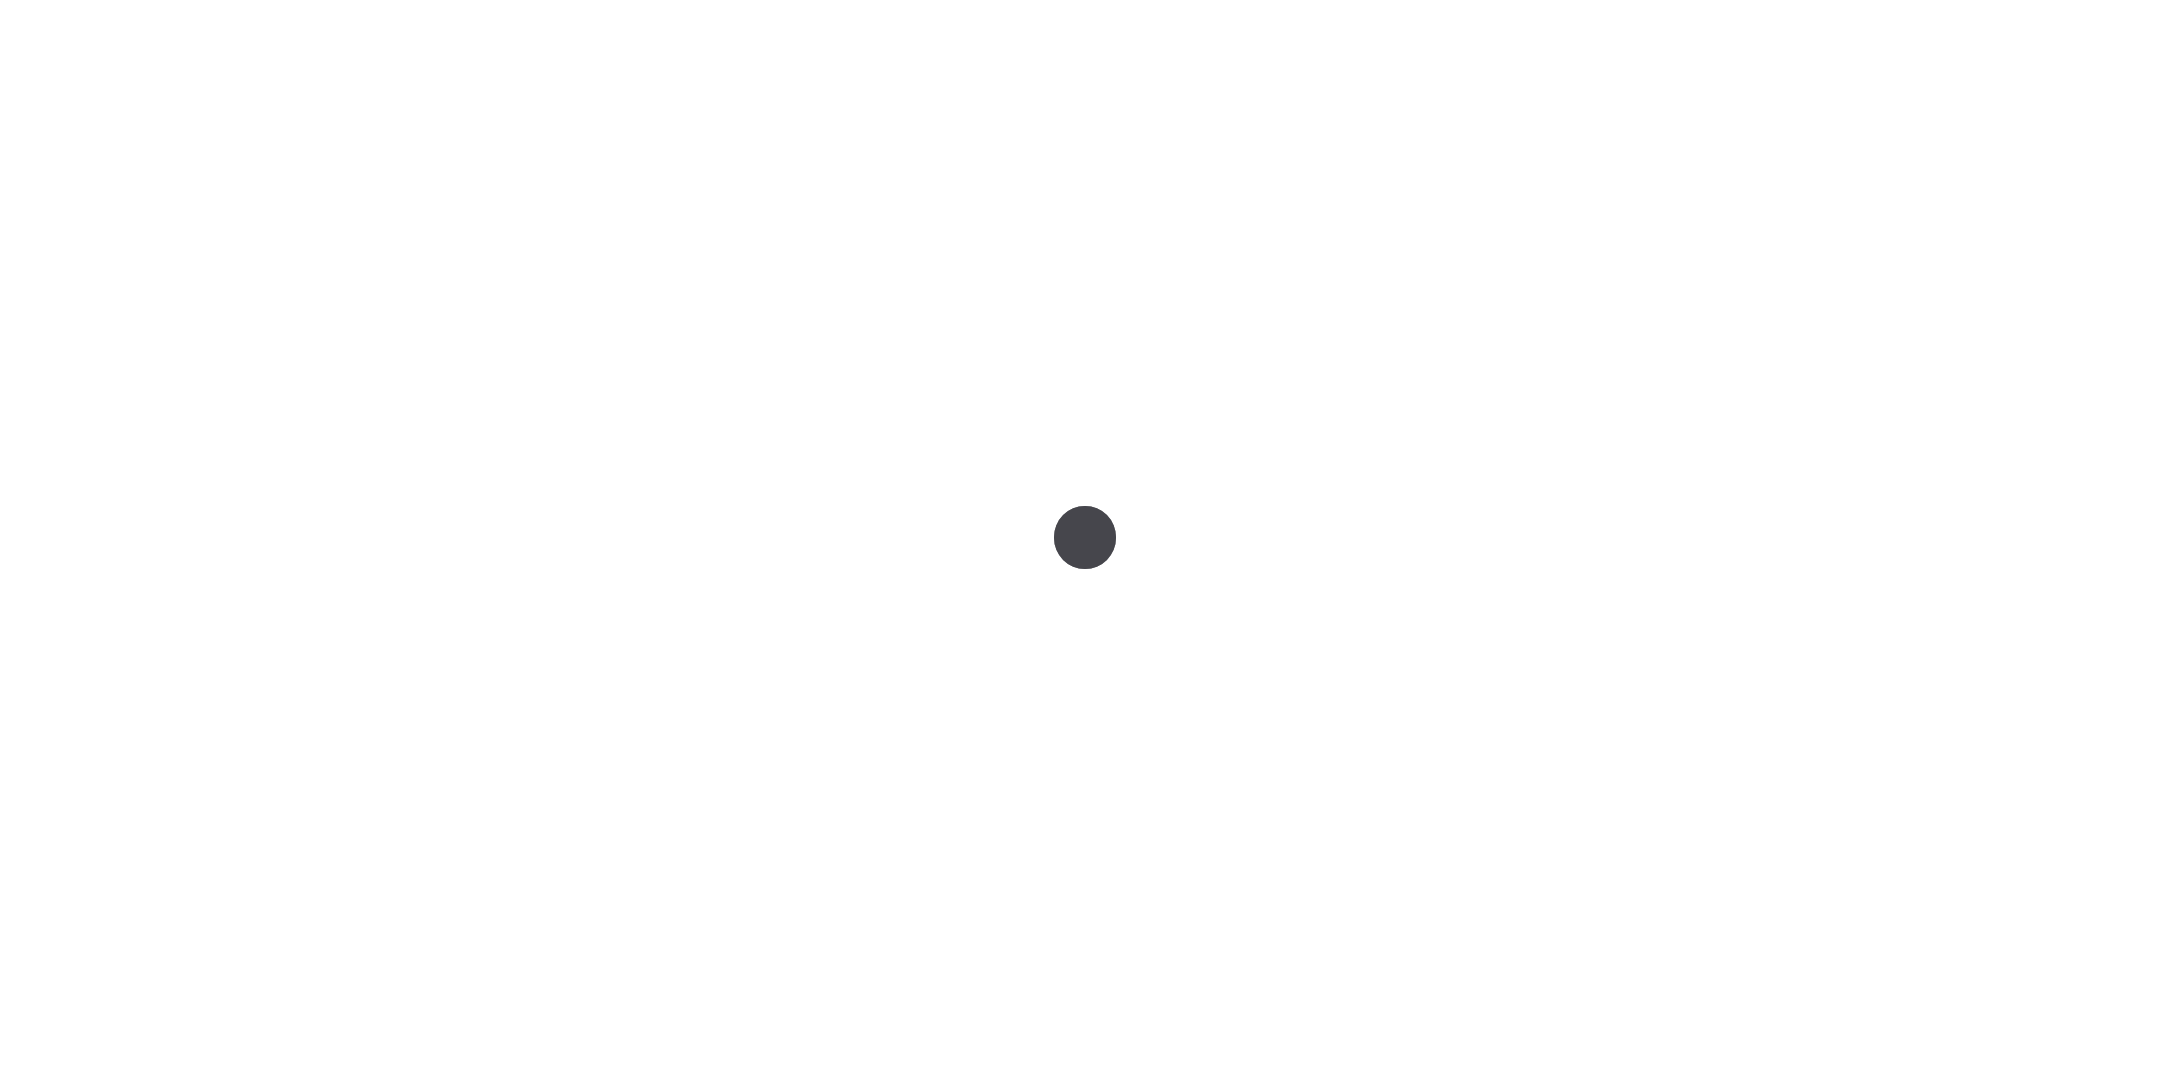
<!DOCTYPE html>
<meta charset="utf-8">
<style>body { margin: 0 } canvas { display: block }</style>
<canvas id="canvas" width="2168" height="1073"></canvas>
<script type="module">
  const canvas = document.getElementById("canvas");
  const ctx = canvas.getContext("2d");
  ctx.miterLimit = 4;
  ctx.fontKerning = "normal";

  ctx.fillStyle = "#ffffff";
  ctx.fillRect(0, 0, 2168, 1073);
  ctx.fillStyle = "#65656a";
  ctx.beginPath();
  ctx.roundRect(1054, 506, 62, 63, 31);
  ctx.fill();
  ctx.fillStyle = "rgba(63, 62, 69, 0.8)";
  ctx.beginPath();
  ctx.roundRect(1054, 506, 62, 63, 31);
  ctx.fill();
</script>
